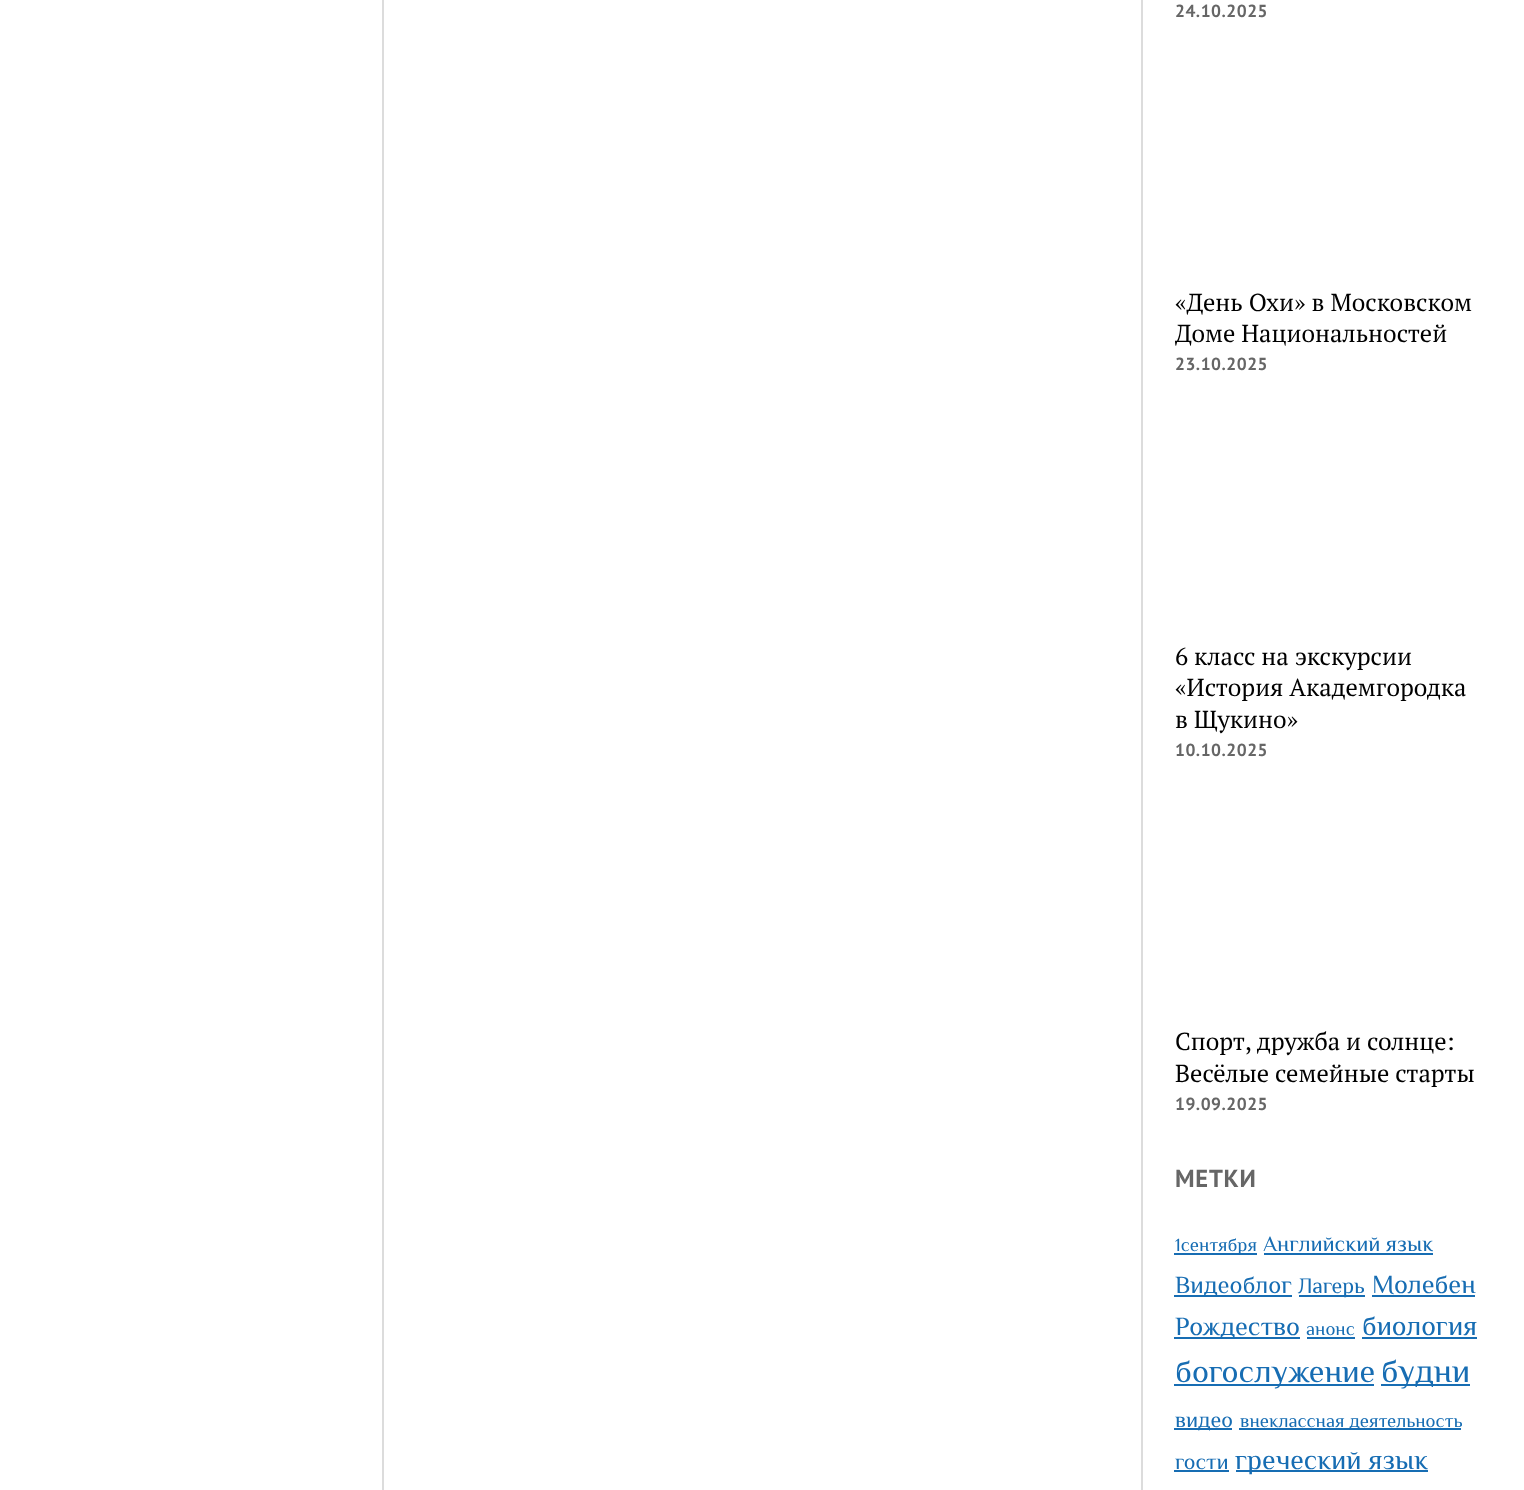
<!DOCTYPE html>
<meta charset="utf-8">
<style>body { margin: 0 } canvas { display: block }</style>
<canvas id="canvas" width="1524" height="1490"></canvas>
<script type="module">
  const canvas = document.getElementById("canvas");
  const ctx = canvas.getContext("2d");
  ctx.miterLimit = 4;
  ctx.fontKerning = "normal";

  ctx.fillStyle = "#ffffff";
  ctx.fillRect(0, 0, 1524, 1490);
  ctx.fillStyle = "#dcdcdc";
  ctx.fillRect(382, 0, 2, 1490);
  ctx.fillRect(1141, 0, 2, 1490);
  ctx.letterSpacing = "0.5px";
  ctx.font = "bold 17.5px PT Sans";
  ctx.fillStyle = "#666666";
  ctx.fillText("24.10.2025", 1175, 17);
  ctx.letterSpacing = "0px";
  ctx.font = "24.5px PT Serif";
  ctx.fillStyle = "#000000";
  ctx.fillText("«День Охи» в Московском", 1175, 311);
  ctx.fillText("Доме Национальностей", 1175, 342);
  ctx.letterSpacing = "0.5px";
  ctx.font = "bold 17.5px PT Sans";
  ctx.fillStyle = "#666666";
  ctx.fillText("23.10.2025", 1175, 370);
  ctx.letterSpacing = "0px";
  ctx.font = "24.5px PT Serif";
  ctx.fillStyle = "#000000";
  ctx.fillText("6 класс на экскурсии", 1175, 665);
  ctx.fillText("«История Академгородка", 1175, 696);
  ctx.fillText("в Щукино»", 1175, 728);
  ctx.letterSpacing = "0.5px";
  ctx.font = "bold 17.5px PT Sans";
  ctx.fillStyle = "#666666";
  ctx.fillText("10.10.2025", 1175, 756);
  ctx.letterSpacing = "0px";
  ctx.font = "24.5px PT Serif";
  ctx.fillStyle = "#000000";
  ctx.fillText("Спорт, дружба и солнце:", 1175, 1050);
  ctx.fillText("Весёлые семейные старты", 1175, 1082);
  ctx.letterSpacing = "0.5px";
  ctx.font = "bold 17.5px PT Sans";
  ctx.fillStyle = "#666666";
  ctx.fillText("19.09.2025", 1175, 1110);
  ctx.letterSpacing = "0.75px";
  ctx.font = "bold 24.5px PT Sans";
  ctx.fillText("МЕТКИ", 1175, 1187);
  ctx.fillStyle = "#176db3";
  ctx.fillRect(1174, 1253, 83, 2);
  ctx.letterSpacing = "0px";
  ctx.font = "18.75px Philosopher";
  ctx.fillText("1сентября", 1175, 1251);
  ctx.font = "22px Philosopher";
  ctx.fillText("Английский язык", 1263, 1251);
  ctx.fillRect(1264, 1253, 169, 2);
  ctx.fillRect(1174, 1295, 118, 2);
  ctx.font = "24.5px Philosopher";
  ctx.fillText("Видеоблог", 1175, 1293);
  ctx.fillRect(1299, 1295, 66, 2);
  ctx.font = "22px Philosopher";
  ctx.fillText("Лагерь", 1298, 1293);
  ctx.font = "26.25px Philosopher";
  ctx.fillText("Молебен", 1372, 1293);
  ctx.fillRect(1372, 1295, 103, 2);
  ctx.fillRect(1174, 1337, 126, 2);
  ctx.fillText("Рождество", 1175, 1335);
  ctx.font = "18.75px Philosopher";
  ctx.fillText("анонс", 1306, 1335);
  ctx.fillRect(1307, 1337, 48, 2);
  ctx.font = "27.75px Philosopher";
  ctx.fillText("биология", 1362, 1335);
  ctx.fillRect(1362, 1337, 115, 2);
  ctx.fillRect(1174, 1384, 200, 2);
  ctx.font = "32px Philosopher";
  ctx.fillText("богослужение", 1175, 1382);
  ctx.fillRect(1381, 1384, 89, 2);
  ctx.font = "33px Philosopher";
  ctx.fillText("будни", 1381, 1382);
  ctx.fillRect(1174, 1428, 58, 2);
  ctx.font = "22px Philosopher";
  ctx.fillText("видео", 1175, 1427);
  ctx.fillRect(1239, 1428, 222, 2);
  ctx.font = "18.75px Philosopher";
  ctx.fillText("внеклассная деятельность", 1240, 1427);
  ctx.font = "22px Philosopher";
  ctx.fillText("гости", 1175, 1469);
  ctx.fillRect(1174, 1470, 55, 2);
  ctx.fillRect(1236, 1470, 192, 2);
  ctx.font = "27.75px Philosopher";
  ctx.fillText("греческий язык", 1235, 1469);
</script>
